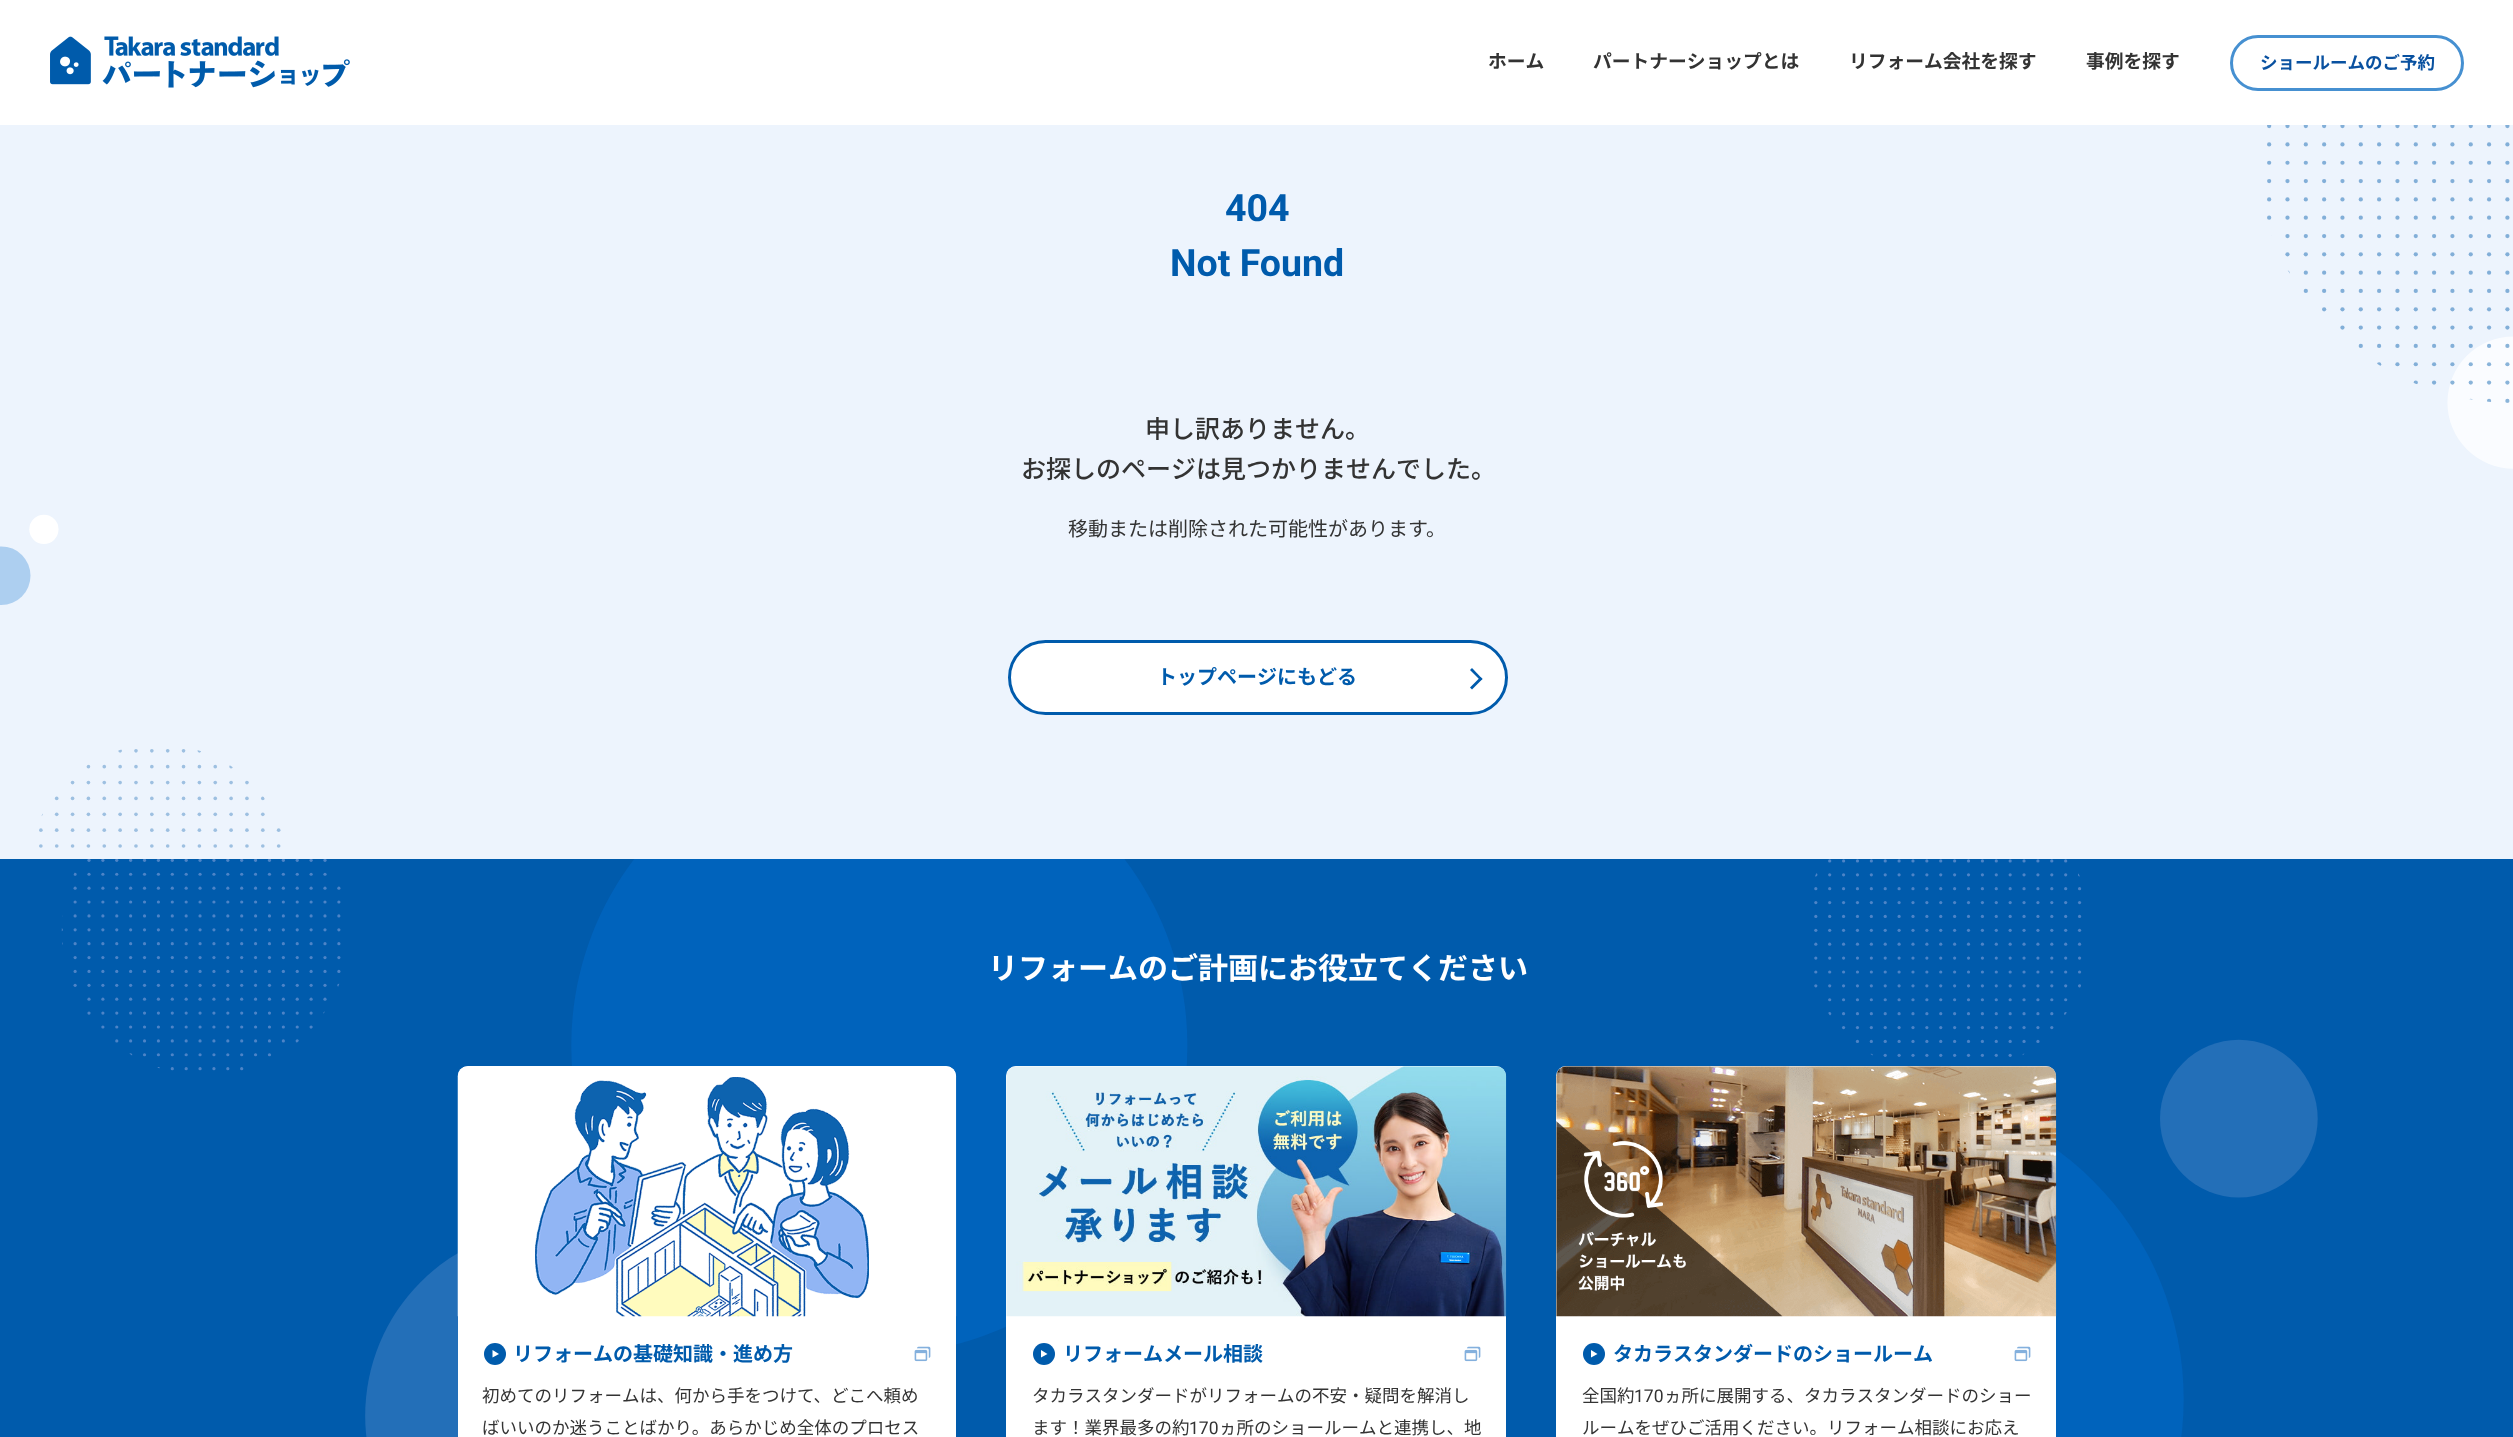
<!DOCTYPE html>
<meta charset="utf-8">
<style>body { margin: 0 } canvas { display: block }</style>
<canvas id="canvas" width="2513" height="1437"></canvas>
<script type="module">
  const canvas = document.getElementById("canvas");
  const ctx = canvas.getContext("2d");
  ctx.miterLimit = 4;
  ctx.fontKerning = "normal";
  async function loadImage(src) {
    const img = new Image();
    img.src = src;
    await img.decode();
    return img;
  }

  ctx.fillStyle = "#edf4fd";
  ctx.fillRect(0, 0, 2513, 1437);
  ctx.fillStyle = "#ffffff";
  ctx.fillRect(0, 0, 2513, 125);
  ctx.drawImage(await loadImage("img1.png"), 50, 36, 300, 52);
  ctx.font = "bold 18.75px Noto Sans JP";
  ctx.fillStyle = "#333333";
  ctx.fillText("ホーム", 1488, 68);
  ctx.fillText("パートナーショップとは", 1593, 68);
  ctx.fillText("リフォーム会社を探す", 1849, 68);
  ctx.fillText("事例を探す", 2086, 68);
  ctx.beginPath();
  ctx.roundRect(2231.5, 36.5, 231, 53, 26.5);
  ctx.strokeStyle = "#4690d1";
  ctx.lineWidth = 3;
  ctx.stroke();
  ctx.font = "bold 17.5px Noto Sans JP";
  ctx.fillStyle = "#0951a0";
  ctx.fillText("ショールームのご予約", 2260, 69);
  ctx.drawImage(await loadImage("img2.png"), 0, 125, 2513, 723);
  ctx.font = "bold 37.5px Roboto";
  ctx.fillStyle = "#005bac";
  ctx.fillText("404", 1225, 221);
  ctx.fillText("Not Found", 1170, 276);
  ctx.font = "500 25px Noto Sans JP";
  ctx.fillStyle = "#333333";
  ctx.fillText("申し訳ありません。", 1145, 438);
  ctx.fillText("お探しのページは見つかりませんでした。", 1021, 478);
  ctx.font = "20px Noto Sans JP";
  ctx.fillText("移動または削除された可能性があります。", 1068, 536);
  ctx.fillStyle = "#ffffff";
  ctx.beginPath();
  ctx.roundRect(1009.5, 641.5, 497, 72, 36);
  ctx.fill();
  ctx.strokeStyle = "#005bac";
  ctx.stroke();
  ctx.font = "bold 20px Noto Sans JP";
  ctx.fillStyle = "#005bac";
  ctx.fillText("トップページにもどる", 1157, 684);
  ctx.beginPath();
  ctx.moveTo(1470, 670);
  ctx.lineTo(1472, 668);
  ctx.lineTo(1482.5, 679);
  ctx.lineTo(1480.5, 680.5);
  ctx.closePath();
  ctx.fill();
  ctx.beginPath();
  ctx.moveTo(1470, 687.5);
  ctx.lineTo(1480.5, 677);
  ctx.lineTo(1482.5, 679);
  ctx.lineTo(1472, 689.5);
  ctx.closePath();
  ctx.fill();
  ctx.fillRect(0, 859, 2513, 578);
  ctx.drawImage(await loadImage("img3.png"), 61, 859, 2257, 578);
  ctx.font = "bold 30px Noto Sans JP";
  ctx.fillStyle = "#ffffff";
  ctx.fillText("リフォームのご計画にお役立てください", 988, 979);
  ctx.beginPath();
  ctx.roundRect(458, 1066, 498, 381, 10);
  ctx.fill();
  ctx.drawImage(await loadImage("img4.png"), 457, 1066, 500, 251);
  ctx.fillStyle = "#005bac";
  ctx.beginPath();
  ctx.arc(495, 1354, 11, 0, Math.PI * 2);
  ctx.fill();
  ctx.fillStyle = "#ffffff";
  ctx.beginPath();
  ctx.moveTo(499, 1354);
  ctx.lineTo(492.5, 1357.5);
  ctx.lineTo(492.5, 1350);
  ctx.closePath();
  ctx.fill();
  ctx.font = "bold 20px Noto Sans JP";
  ctx.fillStyle = "#005bac";
  ctx.fillText("リフォームの基礎知識・進め方", 513, 1361);
  ctx.drawImage(await loadImage("img5.png"), 914, 1346, 17, 16);
  ctx.font = "17.5px Noto Sans JP";
  ctx.fillStyle = "#333333";
  ctx.fillText("初めてのリフォームは、何から手をつけて、どこへ頼め", 482, 1402);
  ctx.fillText("ばいいのか迷うことばかり。あらかじめ全体のプロセス", 482, 1434);
  ctx.fillStyle = "#ffffff";
  ctx.beginPath();
  ctx.roundRect(1006, 1066, 500, 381, 10);
  ctx.fill();
  ctx.drawImage(await loadImage("img6.png"), 1006, 1066, 501, 251);
  ctx.fillStyle = "#005bac";
  ctx.beginPath();
  ctx.arc(1044, 1354, 11, 0, Math.PI * 2);
  ctx.fill();
  ctx.fillStyle = "#ffffff";
  ctx.beginPath();
  ctx.moveTo(1047.5, 1354);
  ctx.lineTo(1041, 1357.5);
  ctx.lineTo(1041, 1350);
  ctx.closePath();
  ctx.fill();
  ctx.font = "bold 20px Noto Sans JP";
  ctx.fillStyle = "#005bac";
  ctx.fillText("リフォームメール相談", 1063, 1361);
  ctx.drawImage(await loadImage("img5.png"), 1464, 1346, 17, 16);
  ctx.font = "17.5px Noto Sans JP";
  ctx.fillStyle = "#333333";
  ctx.fillText("タカラスタンダードがリフォームの不安・疑問を解消し", 1032, 1402);
  ctx.fillText("ます！業界最多の約", 1032, 1434);
  ctx.font = "17.5px Roboto";
  ctx.fillText("170", 1189, 1434);
  ctx.font = "17.5px Noto Sans JP";
  ctx.fillText("ヵ所のショールームと連携し、地", 1219, 1434);
  ctx.fillStyle = "#ffffff";
  ctx.beginPath();
  ctx.roundRect(1556, 1066, 500, 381, 10);
  ctx.fill();
  ctx.drawImage(await loadImage("img7.png"), 1556, 1066, 501, 251);
  ctx.fillStyle = "#005bac";
  ctx.beginPath();
  ctx.arc(1594, 1354, 11, 0, Math.PI * 2);
  ctx.fill();
  ctx.fillStyle = "#ffffff";
  ctx.beginPath();
  ctx.moveTo(1597.5, 1354);
  ctx.lineTo(1591, 1357.5);
  ctx.lineTo(1591, 1350);
  ctx.closePath();
  ctx.fill();
  ctx.font = "bold 20px Noto Sans JP";
  ctx.fillStyle = "#005bac";
  ctx.fillText("タカラスタンダードのショールーム", 1613, 1361);
  ctx.drawImage(await loadImage("img5.png"), 2014, 1346, 17, 16);
  ctx.font = "17.5px Noto Sans JP";
  ctx.fillStyle = "#333333";
  ctx.fillText("全国約", 1582, 1402);
  ctx.font = "17.5px Roboto";
  ctx.fillText("170", 1634, 1402);
  ctx.font = "17.5px Noto Sans JP";
  ctx.fillText("ヵ所に展開する、タカラスタンダードのショー", 1664, 1402);
  ctx.fillText("ルームをぜひご活用ください。リフォーム相談にお応え", 1582, 1434);
</script>
